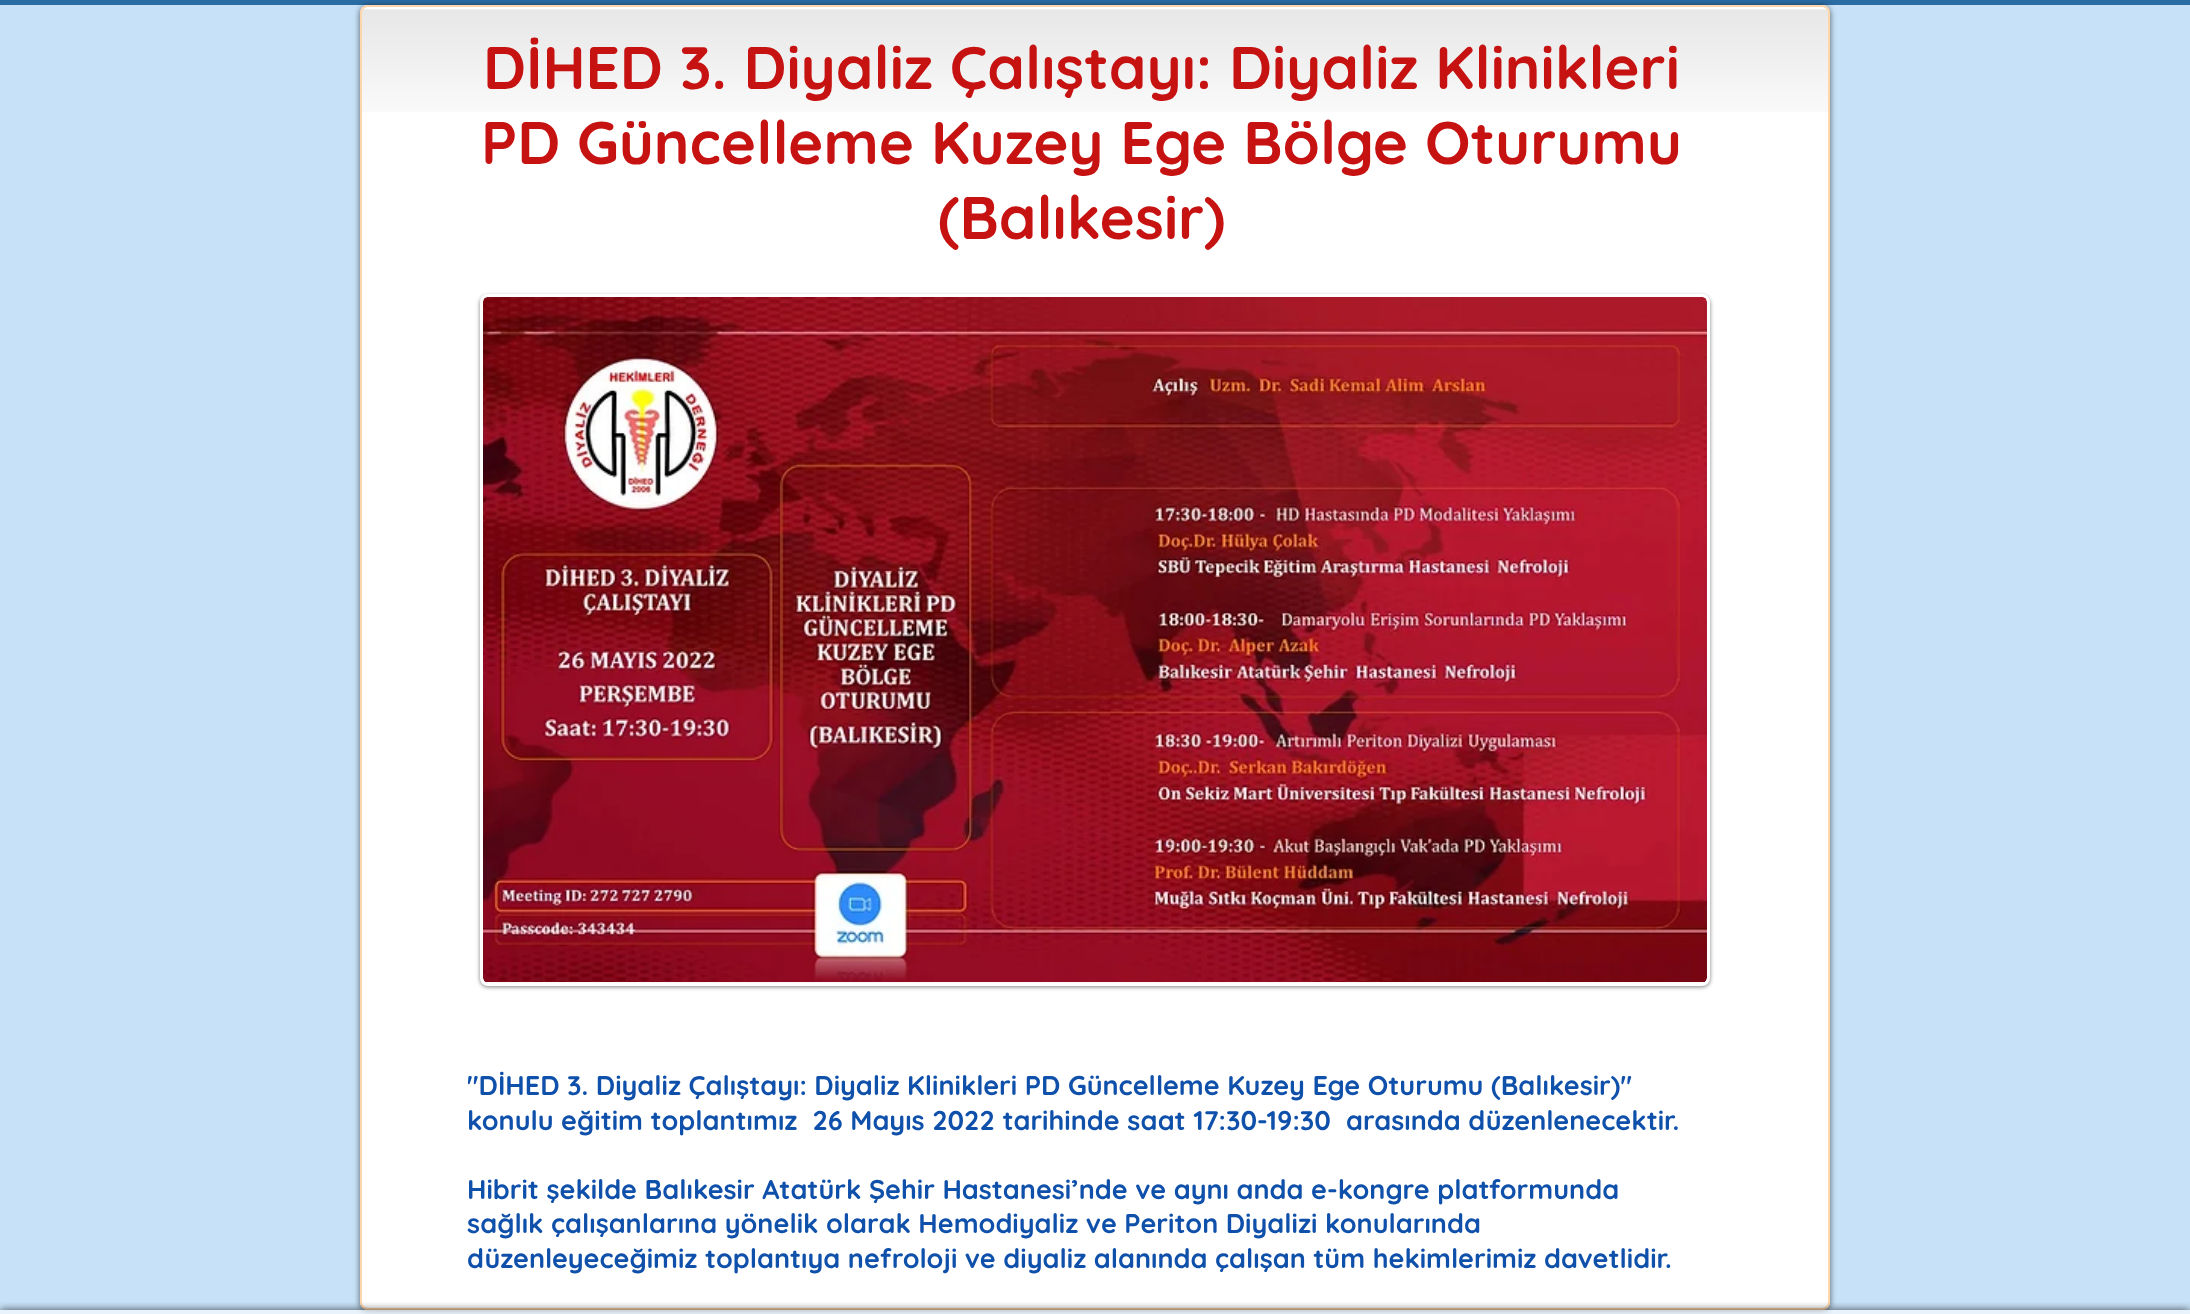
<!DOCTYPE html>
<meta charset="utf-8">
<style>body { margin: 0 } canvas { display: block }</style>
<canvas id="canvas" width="2190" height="1314"></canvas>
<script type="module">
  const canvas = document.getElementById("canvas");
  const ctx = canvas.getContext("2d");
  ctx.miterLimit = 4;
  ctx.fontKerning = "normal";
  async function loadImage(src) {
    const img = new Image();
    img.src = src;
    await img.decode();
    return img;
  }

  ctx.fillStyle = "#c7e2f8";
  ctx.fillRect(0, 0, 2190, 1314);
  ctx.fillStyle = "#2b6ca3";
  ctx.fillRect(0, 0, 2190, 5);
  ctx.fillStyle = "rgba(0, 0, 0, 0.6)";
  ctx.filter = "blur(3px)";
  ctx.beginPath();
  ctx.roundRect(360, 6, 1470, 1305, 8);
  ctx.fill();
  ctx.filter = "none";
  ctx.fillStyle = "#ffffff";
  ctx.beginPath();
  ctx.roundRect(360, 5, 1470, 1305, 8);
  ctx.fill();
  ctx.drawImage(await loadImage("img1.png"), 360, 9, 1470, 103);
  ctx.beginPath();
  ctx.roundRect(361, 6, 1468, 1303, 7);
  ctx.strokeStyle = "#ffd6aa";
  ctx.lineWidth = 2;
  ctx.stroke();
  ctx.font = "bold 60px Quicksand";
  ctx.fillStyle = "#c71212";
  ctx.fillText("DİHED 3. Diyaliz Çalıştayı: Diyaliz Klinikleri", 483, 89);
  ctx.fillText("PD Güncelleme Kuzey Ege Bölge Oturumu", 481, 164);
  ctx.fillText("(Balıkesir)", 938, 239);
  ctx.fillStyle = "rgba(0, 0, 0, 0.5)";
  ctx.filter = "blur(2px)";
  ctx.beginPath();
  ctx.roundRect(480, 296, 1230, 691, 8);
  ctx.fill();
  ctx.filter = "none";
  ctx.fillStyle = "#ffffff";
  ctx.beginPath();
  ctx.roundRect(481.5, 295.5, 1227, 689, 6.5);
  ctx.fill();
  ctx.strokeStyle = "#ffffff";
  ctx.lineWidth = 3;
  ctx.stroke();
  ctx.drawImage(await loadImage("img2.png"), 483, 297, 1224, 686);
  ctx.font = "bold 27px Quicksand";
  ctx.fillStyle = "#0f50aa";
  ctx.fillText("\"DİHED 3. Diyaliz Çalıştayı: Diyaliz Klinikleri PD Güncelleme Kuzey Ege Oturumu (Balıkesir)\"", 467, 1095);
  ctx.fillText("konulu eğitim toplantımız  26 Mayıs 2022 tarihinde saat 17:30-19:30  arasında düzenlenecektir.", 467, 1130);
  ctx.fillText("Hibrit şekilde Balıkesir Atatürk Şehir Hastanesi’nde ve aynı anda e-kongre platformunda", 467, 1199);
  ctx.fillText("sağlık çalışanlarına yönelik olarak Hemodiyaliz ve Periton Diyalizi konularında", 467, 1233);
  ctx.fillText("düzenleyeceğimiz toplantıya nefroloji ve diyaliz alanında çalışan tüm hekimlerimiz davetlidir.", 467, 1268);
  ctx.save();
  ctx.beginPath();
  ctx.rect(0, 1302, 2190, 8);
  ctx.clip();
  ctx.fillStyle = "rgba(0, 0, 0, 0.7)";
  ctx.filter = "blur(4px)";
  ctx.beginPath();
  ctx.rect(0, 1310, 2190, 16);
  ctx.fill();
  ctx.filter = "none";
  ctx.restore();
  ctx.fillStyle = "rgba(255, 255, 255, 0.6)";
  ctx.fillRect(0, 1310, 2190, 4);
</script>
